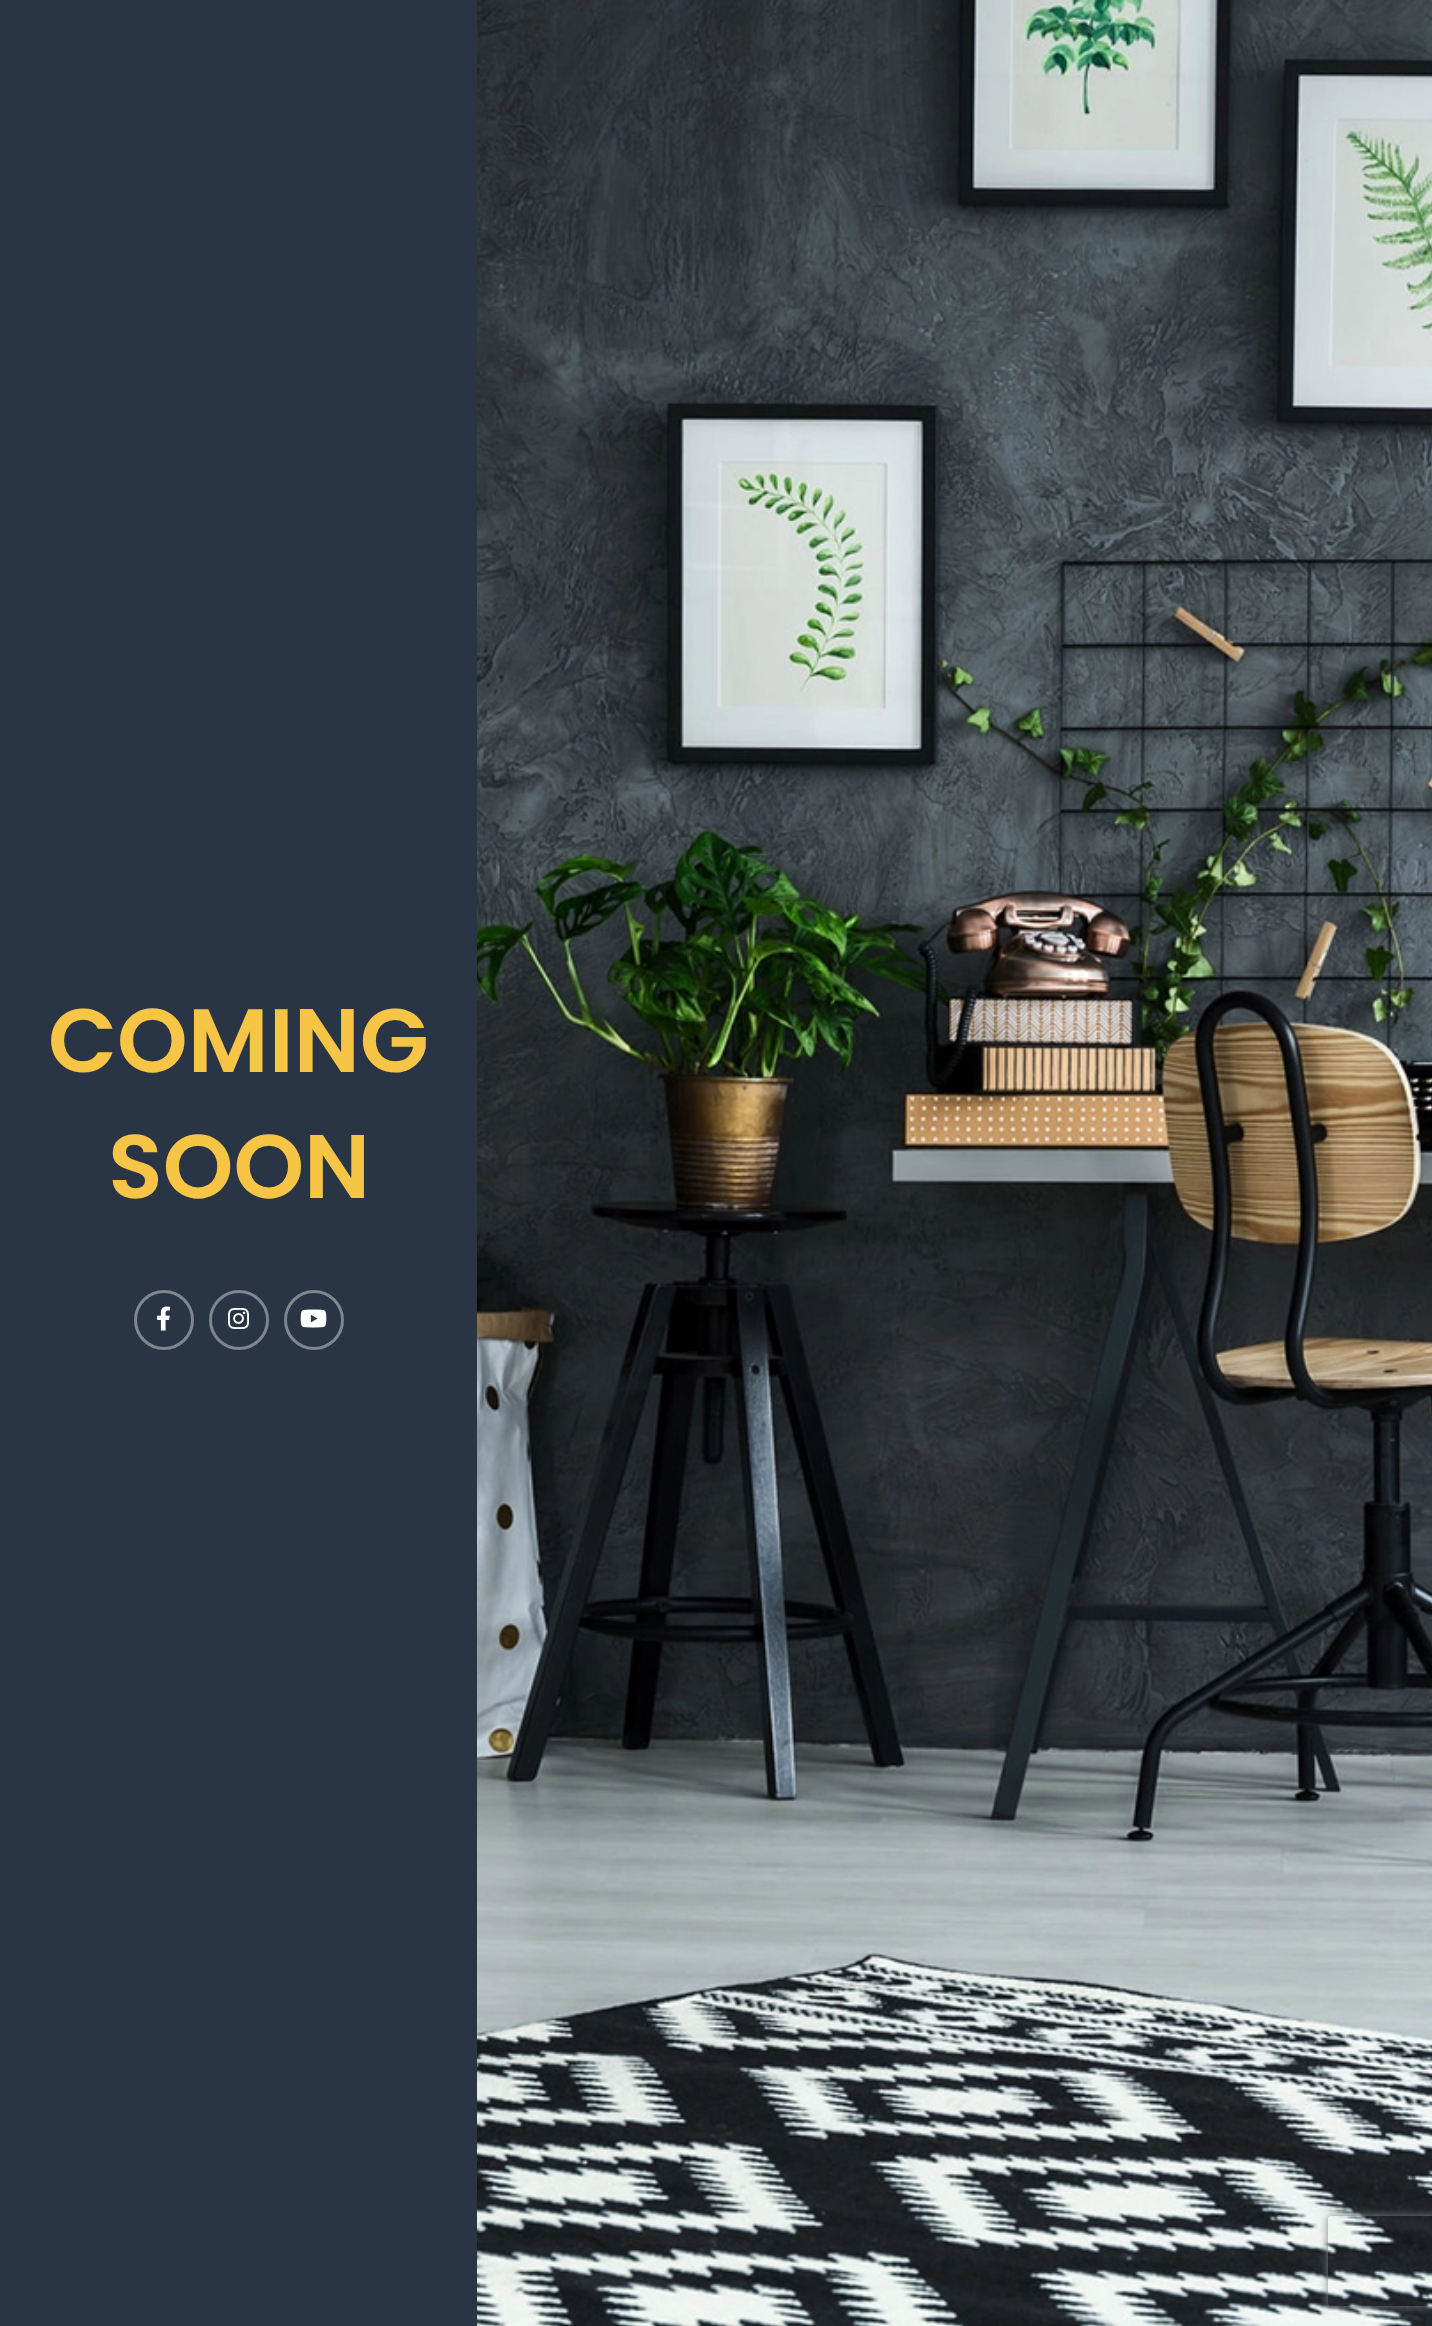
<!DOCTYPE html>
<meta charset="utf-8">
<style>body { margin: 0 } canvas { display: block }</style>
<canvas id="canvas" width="1432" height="2326"></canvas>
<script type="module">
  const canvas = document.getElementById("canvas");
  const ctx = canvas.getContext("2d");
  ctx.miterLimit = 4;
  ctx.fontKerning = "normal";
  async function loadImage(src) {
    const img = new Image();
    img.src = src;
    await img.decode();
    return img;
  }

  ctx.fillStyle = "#293544";
  ctx.fillRect(0, 0, 1432, 2326);
  ctx.font = "600 90px Poppins";
  ctx.fillStyle = "#f6c545";
  ctx.fillText("COMING", 48, 1072);
  ctx.fillText("SOON", 108, 1198);
  ctx.beginPath();
  ctx.arc(164, 1320, 28.5, 0, Math.PI * 2);
  ctx.strokeStyle = "#7f868f";
  ctx.lineWidth = 3;
  ctx.stroke();
  ctx.drawImage(await loadImage("img1.png"), 157, 1306, 13, 25);
  ctx.beginPath();
  ctx.arc(239, 1320, 28.5, 0, Math.PI * 2);
  ctx.stroke();
  ctx.drawImage(await loadImage("img2.png"), 228, 1308, 21, 21);
  ctx.beginPath();
  ctx.arc(314, 1320, 28.5, 0, Math.PI * 2);
  ctx.stroke();
  ctx.drawImage(await loadImage("img3.png"), 300, 1309, 27, 19);
  ctx.drawImage(await loadImage("img4.png"), 477, 0, 955, 2326);
  ctx.save();
  ctx.beginPath();
  ctx.moveTo(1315, 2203);
  ctx.lineTo(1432, 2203);
  ctx.lineTo(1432, 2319);
  ctx.lineTo(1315, 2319);
  ctx.closePath();
  ctx.moveTo(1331, 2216);
  ctx.lineTo(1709, 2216);
  ctx.bezierCurveTo(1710.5, 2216, 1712, 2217.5, 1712, 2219);
  ctx.lineTo(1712, 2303);
  ctx.bezierCurveTo(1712, 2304.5, 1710.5, 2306, 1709, 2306);
  ctx.lineTo(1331, 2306);
  ctx.bezierCurveTo(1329.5, 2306, 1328, 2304.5, 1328, 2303);
  ctx.lineTo(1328, 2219);
  ctx.bezierCurveTo(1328, 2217.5, 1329.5, 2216, 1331, 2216);
  ctx.closePath();
  ctx.clip("evenodd");
  ctx.fillStyle = "#808080";
  ctx.filter = "blur(4px)";
  ctx.beginPath();
  ctx.roundRect(1328, 2216, 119, 90, 3);
  ctx.fill();
  ctx.filter = "none";
  ctx.restore();
</script>
